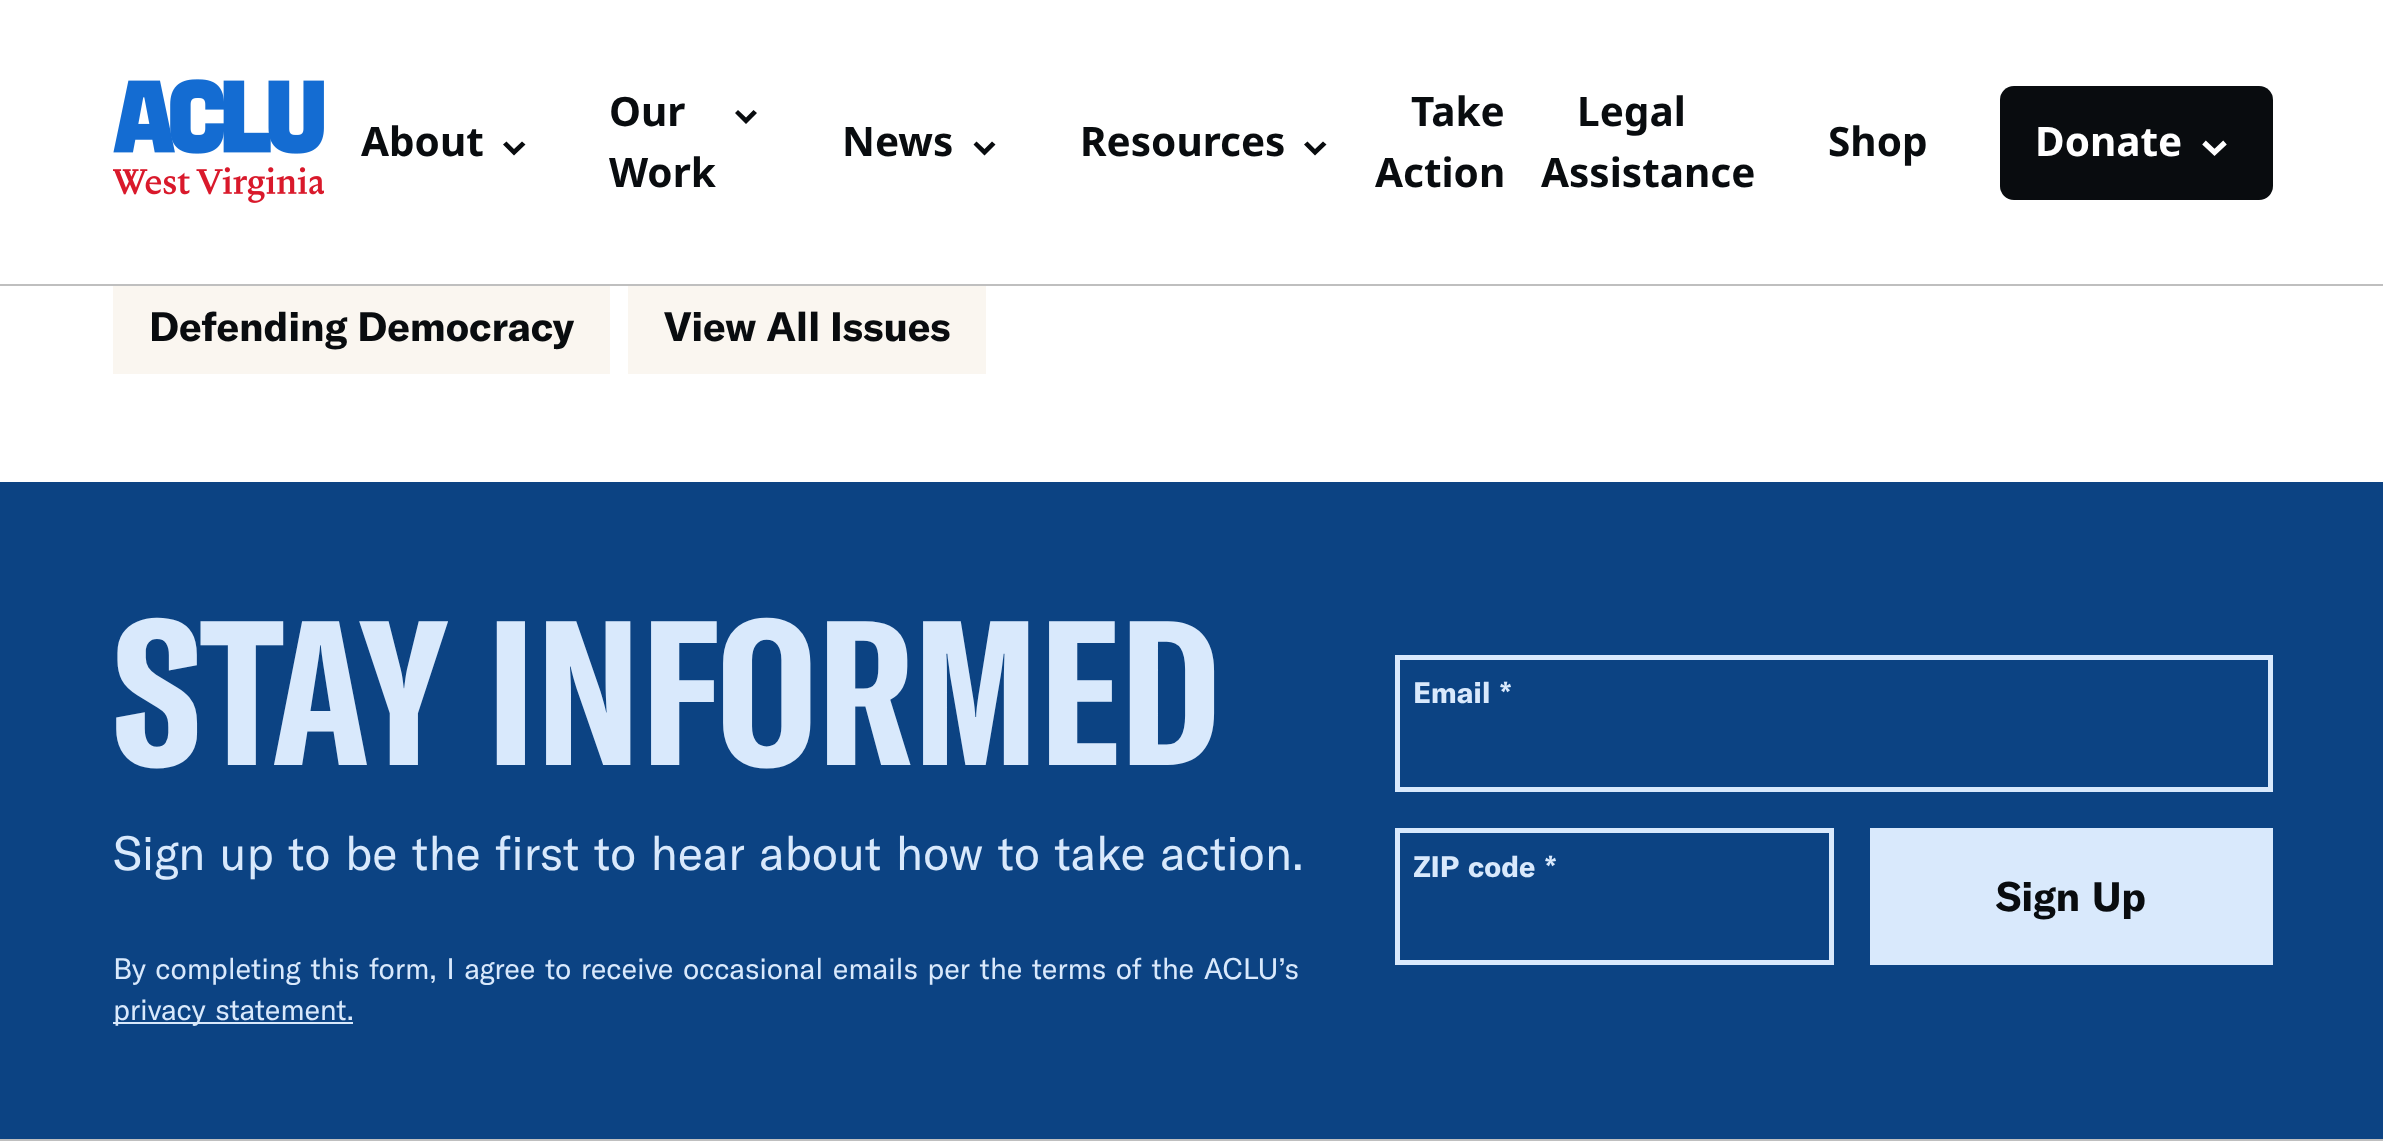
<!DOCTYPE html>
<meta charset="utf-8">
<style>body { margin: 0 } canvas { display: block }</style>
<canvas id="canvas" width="2383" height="1141"></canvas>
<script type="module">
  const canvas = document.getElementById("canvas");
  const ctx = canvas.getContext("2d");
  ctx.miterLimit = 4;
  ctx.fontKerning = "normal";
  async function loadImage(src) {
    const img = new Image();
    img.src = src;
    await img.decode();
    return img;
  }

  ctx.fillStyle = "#ffffff";
  ctx.fillRect(0, 0, 2383, 1141);
  ctx.fillStyle = "#bfbfbf";
  ctx.fillRect(0, 284, 2383, 2);
  ctx.drawImage(await loadImage("img1.png"), 113, 79, 211, 124);
  ctx.font = "bold 40.5px Noto Sans";
  ctx.fillStyle = "#090c0f";
  ctx.fillText("About", 361, 156);
  ctx.beginPath();
  ctx.moveTo(525.5, 144.5);
  ctx.lineTo(514, 155.5);
  ctx.lineTo(503, 144.5);
  ctx.lineTo(506.5, 141.5);
  ctx.lineTo(514, 149);
  ctx.lineTo(522, 141.5);
  ctx.closePath();
  ctx.fill("evenodd");
  ctx.fillText("Our", 609, 126);
  ctx.beginPath();
  ctx.moveTo(757, 113);
  ctx.lineTo(746, 124);
  ctx.lineTo(735, 113);
  ctx.lineTo(738, 110);
  ctx.lineTo(746, 117.5);
  ctx.lineTo(753.5, 110);
  ctx.closePath();
  ctx.fill("evenodd");
  ctx.fillText("Work", 609, 187);
  ctx.fillText("News", 842, 156);
  ctx.beginPath();
  ctx.moveTo(995.5, 144.5);
  ctx.lineTo(984.5, 155.5);
  ctx.lineTo(973.5, 144.5);
  ctx.lineTo(976.5, 141.5);
  ctx.lineTo(984.5, 149);
  ctx.lineTo(992, 141.5);
  ctx.closePath();
  ctx.fill("evenodd");
  ctx.fillText("Resources", 1080, 156);
  ctx.beginPath();
  ctx.moveTo(1326.5, 144.5);
  ctx.lineTo(1315, 155.5);
  ctx.lineTo(1304, 144.5);
  ctx.lineTo(1307.5, 141.5);
  ctx.lineTo(1315, 149);
  ctx.lineTo(1323, 141.5);
  ctx.closePath();
  ctx.fill("evenodd");
  ctx.fillText("Take", 1411, 126);
  ctx.fillText("Action", 1375, 187);
  ctx.fillText("Legal", 1577, 126);
  ctx.fillText("Assistance", 1541, 187);
  ctx.fillText("Shop", 1828, 156);
  ctx.beginPath();
  ctx.roundRect(2000, 86, 273, 114, 14);
  ctx.fill();
  ctx.fillStyle = "#ffffff";
  ctx.fillText("Donate", 2035, 156);
  ctx.beginPath();
  ctx.moveTo(2204, 142.5);
  ctx.lineTo(2214.5, 152.5);
  ctx.lineTo(2225, 142.5);
  ctx.strokeStyle = "#ffffff";
  ctx.lineWidth = 5.2;
  ctx.stroke();
  ctx.fillStyle = "#faf6f0";
  ctx.fillRect(113, 286, 497, 88);
  ctx.letterSpacing = "-0.18px";
  ctx.font = "bold 40.5px GT America";
  ctx.fillStyle = "#090c0f";
  ctx.fillText("Defending Democracy", 149, 341);
  ctx.fillStyle = "#faf6f0";
  ctx.fillRect(628, 286, 358, 88);
  ctx.fillStyle = "#090c0f";
  ctx.fillText("View All Issues", 664, 341);
  ctx.fillStyle = "#0c4383";
  ctx.fillRect(0, 482, 2383, 657);
  ctx.letterSpacing = "0.25px";
  ctx.wordSpacing = "4px";
  ctx.font = "bold 202.5px 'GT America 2'";
  ctx.fillStyle = "#d9e9fc";
  ctx.fillText("STAY INFORMED", 113, 765);
  ctx.letterSpacing = "-0.18px";
  ctx.wordSpacing = "2.25px";
  ctx.font = "47.25px GT America";
  ctx.fillText("Sign up to be the first to hear about how to take action.", 113, 870);
  ctx.font = "29.25px GT America";
  ctx.fillText("By completing this form, I agree to receive occasional emails per the terms of the ACLU’s", 113, 979);
  ctx.fillRect(113, 1022, 240, 2);
  ctx.fillText("privacy statement.", 113, 1020);
  ctx.strokeStyle = "#d9e9fc";
  ctx.lineWidth = 5;
  ctx.strokeRect(1397.5, 657.5, 873, 132);
  ctx.wordSpacing = "0px";
  ctx.font = "bold 29.25px GT America";
  ctx.fillText("Email", 1413, 703);
  ctx.fillText("*", 1500, 703);
  ctx.strokeRect(1397.5, 830.5, 434, 132);
  ctx.wordSpacing = "2.25px";
  ctx.fillText("ZIP code", 1413, 877);
  ctx.wordSpacing = "0px";
  ctx.fillText("*", 1545, 877);
  ctx.fillRect(1870, 828, 403, 137);
  ctx.wordSpacing = "2.25px";
  ctx.font = "bold 40.5px GT America";
  ctx.fillStyle = "#090c0f";
  ctx.fillText("Sign Up", 1996, 911);
  ctx.fillStyle = "#bfbfbf";
  ctx.fillRect(0, 1139, 2383, 2);
</script>
